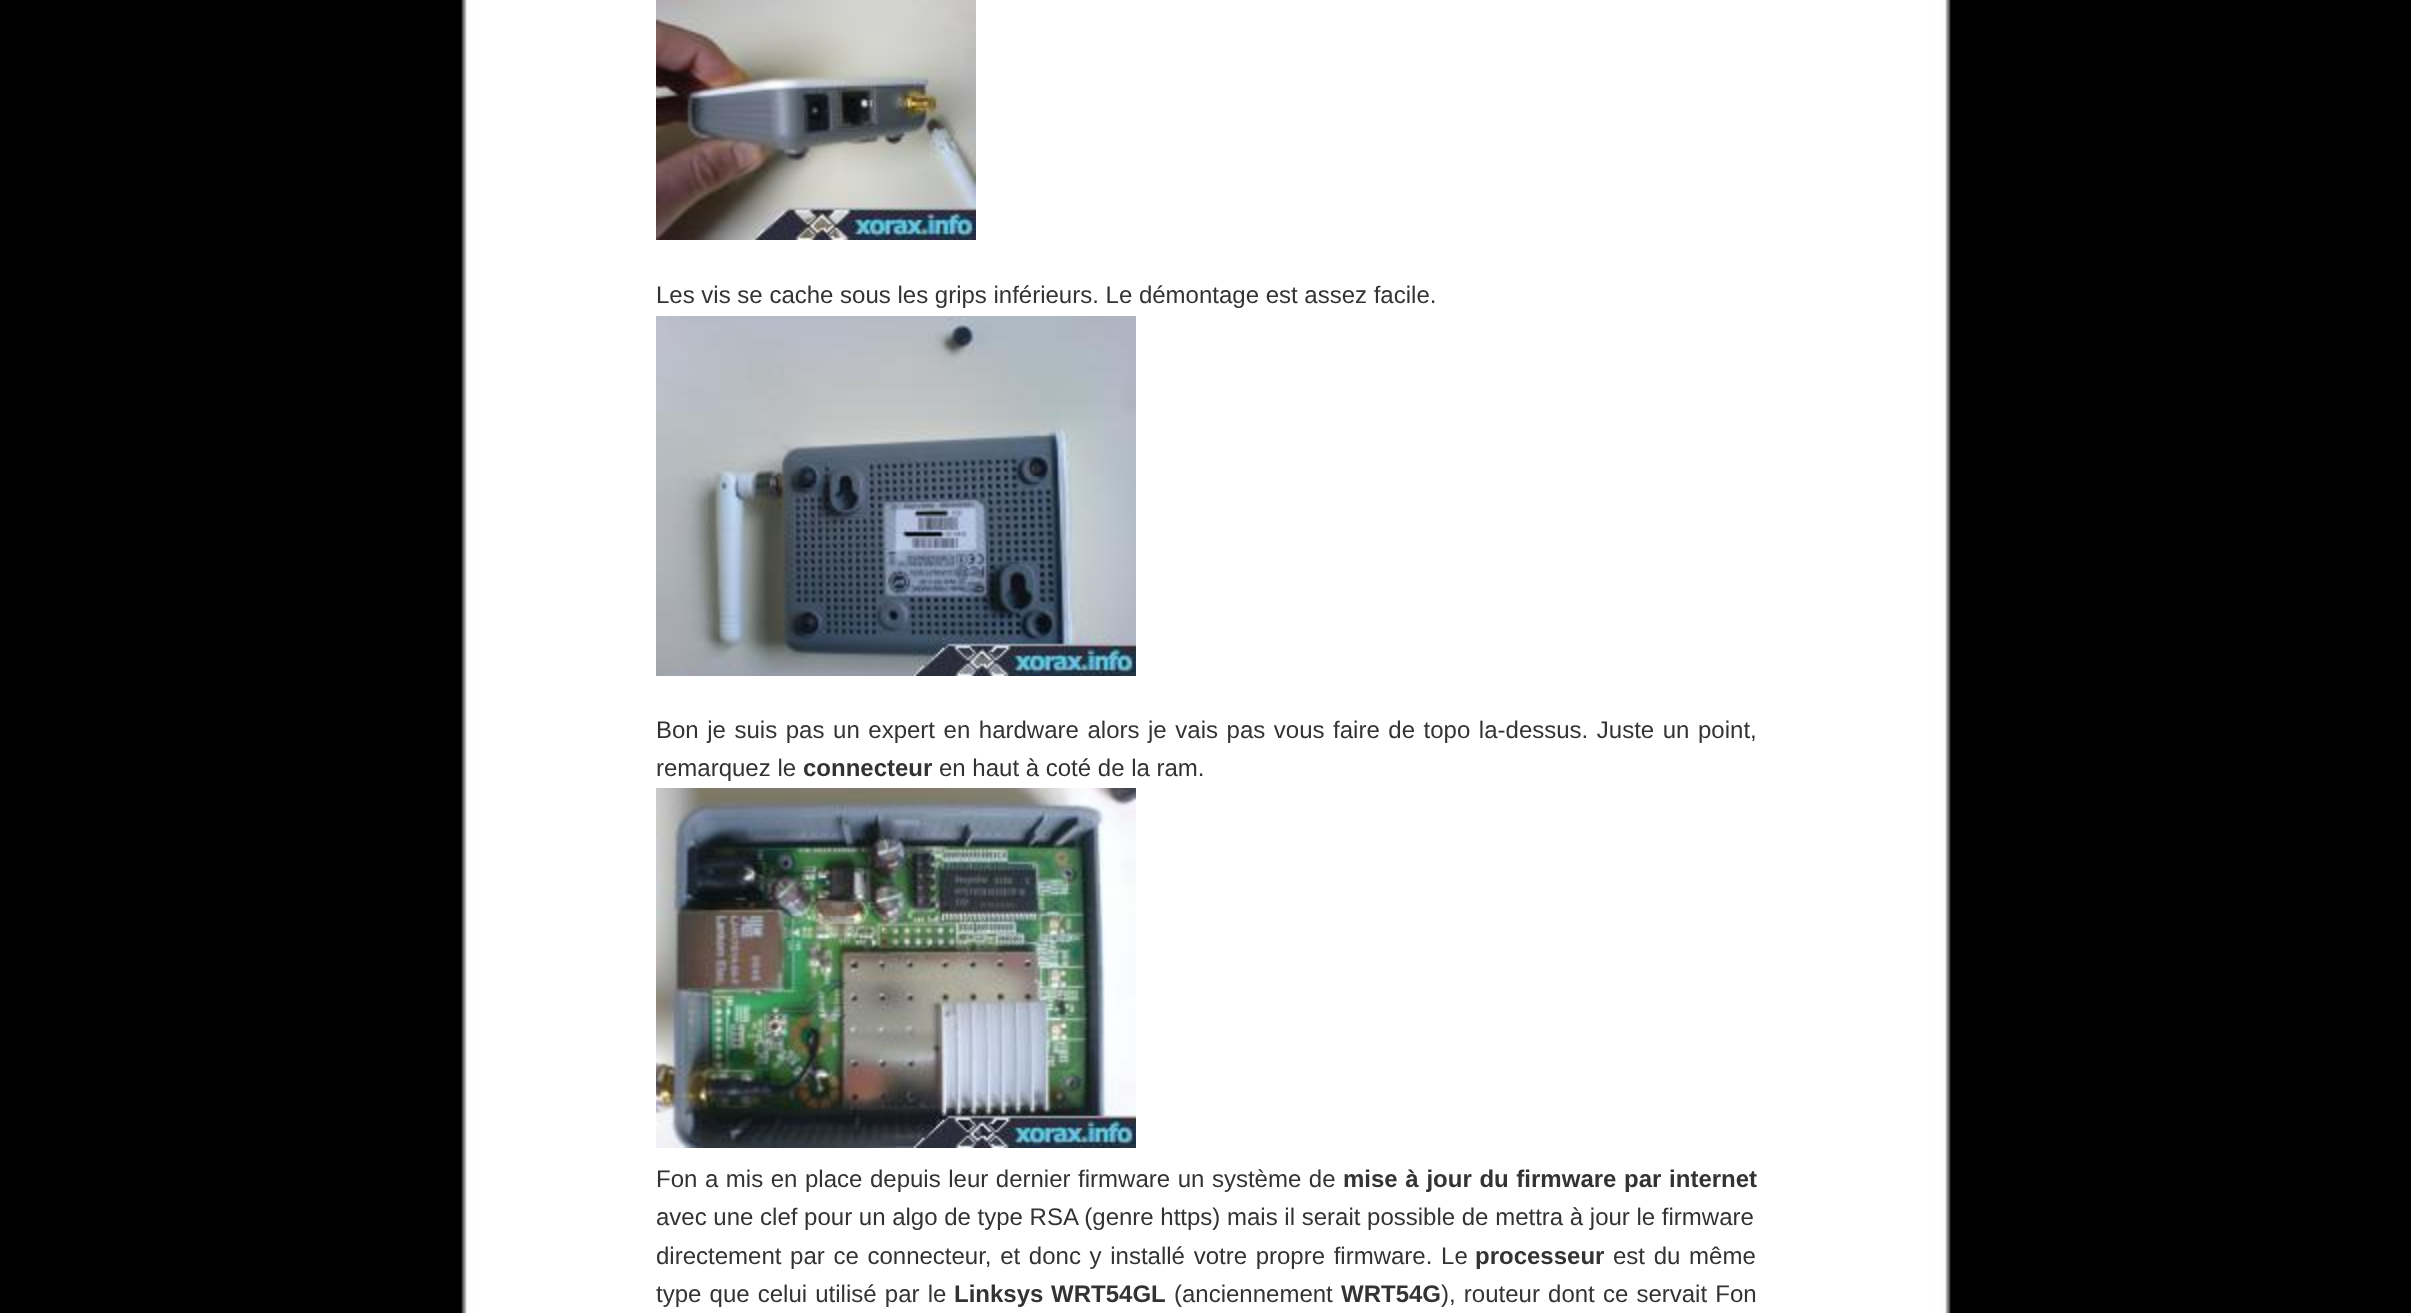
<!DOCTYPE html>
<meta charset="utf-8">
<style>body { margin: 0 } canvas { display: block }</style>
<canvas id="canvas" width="2411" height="1313"></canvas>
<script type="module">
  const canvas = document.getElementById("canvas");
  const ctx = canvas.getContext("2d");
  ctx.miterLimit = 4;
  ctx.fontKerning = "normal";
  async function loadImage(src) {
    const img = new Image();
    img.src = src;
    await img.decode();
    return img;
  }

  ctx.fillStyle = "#000000";
  ctx.fillRect(0, 0, 2411, 1313);
  ctx.drawImage(await loadImage("img1.png"), 461, 0, 1490, 1313);
  ctx.drawImage(await loadImage("img2.png"), 656, 0, 320, 240);
  ctx.font = "24px Liberation Sans";
  ctx.fillStyle = "#333333";
  ctx.fillText("Les vis se cache sous les grips inférieurs. Le démontage est assez facile.", 656, 303);
  ctx.drawImage(await loadImage("img3.png"), 656, 316, 480, 360);
  ctx.wordSpacing = "1.9px";
  ctx.fillText("Bon je suis pas un expert en hardware alors je vais pas vous faire de topo la-dessus. Juste un point,", 656, 738);
  ctx.wordSpacing = "0px";
  ctx.fillText("remarquez le", 656, 776);
  ctx.font = "bold 24px Liberation Sans";
  ctx.fillText("connecteur", 803, 776);
  ctx.font = "24px Liberation Sans";
  ctx.fillText("en haut à coté de la ram.", 939, 776);
  ctx.drawImage(await loadImage("img4.png"), 656, 788, 480, 360);
  ctx.wordSpacing = "0.9px";
  ctx.fillText("Fon a mis en place depuis leur dernier firmware un système de", 656, 1187);
  ctx.wordSpacing = "1px";
  ctx.font = "bold 24px Liberation Sans";
  ctx.fillText("mise à jour du firmware par internet", 1343, 1187);
  ctx.wordSpacing = "0px";
  ctx.font = "24px Liberation Sans";
  ctx.fillText("avec une clef pour un algo de type RSA (genre https) mais il serait possible de mettra à jour le firmware", 656, 1225);
  ctx.wordSpacing = "2px";
  ctx.fillText("directement par ce connecteur, et donc y installé votre propre firmware. Le", 656, 1264);
  ctx.wordSpacing = "0px";
  ctx.font = "bold 24px Liberation Sans";
  ctx.fillText("processeur", 1475, 1264);
  ctx.wordSpacing = "2px";
  ctx.font = "24px Liberation Sans";
  ctx.fillText("est du même", 1613, 1264);
  ctx.wordSpacing = "1.5px";
  ctx.fillText("type que celui utilisé par le", 656, 1302);
  ctx.wordSpacing = "1px";
  ctx.font = "bold 24px Liberation Sans";
  ctx.fillText("Linksys WRT54GL", 954, 1302);
  ctx.wordSpacing = "0px";
  ctx.font = "24px Liberation Sans";
  ctx.fillText("(anciennement", 1174, 1302);
  ctx.font = "bold 24px Liberation Sans";
  ctx.fillText("WRT54G", 1341, 1302);
  ctx.wordSpacing = "1.5px";
  ctx.font = "24px Liberation Sans";
  ctx.fillText("), routeur dont ce servait Fon", 1441, 1302);
</script>
